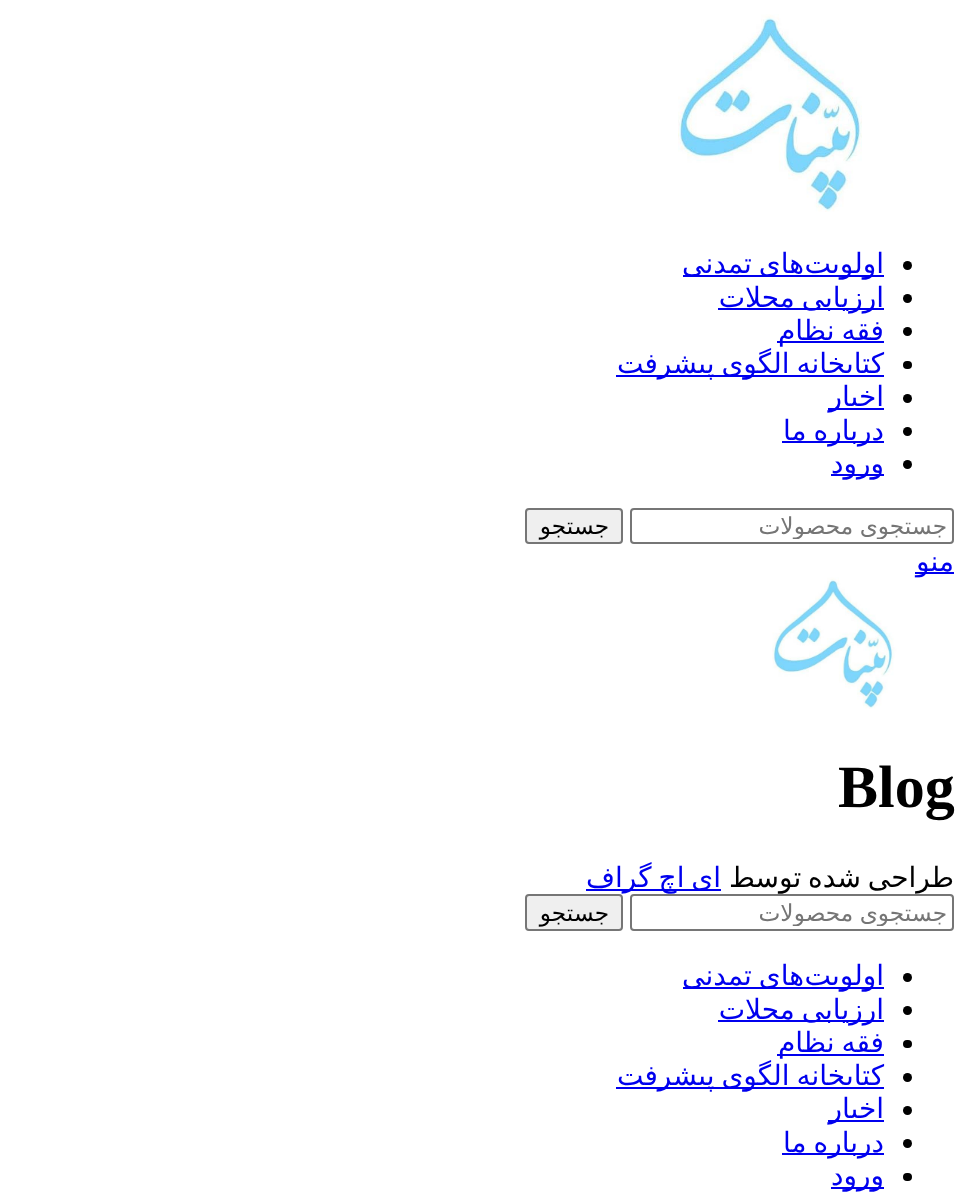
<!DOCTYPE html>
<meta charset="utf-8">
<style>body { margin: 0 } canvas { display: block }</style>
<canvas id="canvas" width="967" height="1198"></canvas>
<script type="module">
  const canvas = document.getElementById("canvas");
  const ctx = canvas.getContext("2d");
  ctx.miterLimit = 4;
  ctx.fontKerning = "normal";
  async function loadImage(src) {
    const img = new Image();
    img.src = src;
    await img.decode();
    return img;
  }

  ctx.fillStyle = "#ffffff";
  ctx.fillRect(0, 0, 967, 1198);
  ctx.drawImage(await loadImage("img1.png"), 678, 14, 184, 198);
  ctx.fillStyle = "#000000";
  ctx.beginPath();
  ctx.arc(907.5, 265.5, 4.5, 0, Math.PI * 2);
  ctx.fill();
  ctx.fillStyle = "#0000ee";
  ctx.fillRect(683, 275, 201, 2);
  ctx.direction = "rtl";
  ctx.font = "28px DejaVu Sans";
  ctx.fillText("اولویت", 884, 273);
  ctx.wordSpacing = "-2px";
  ctx.fillText("های تمدنی", 804, 273);
  ctx.fillStyle = "#000000";
  ctx.beginPath();
  ctx.arc(907.5, 298.5, 4.5, 0, Math.PI * 2);
  ctx.fill();
  ctx.fillStyle = "#0000ee";
  ctx.fillRect(718, 308, 166, 2);
  ctx.fillText("ارزیابی محلات", 884, 307);
  ctx.fillStyle = "#000000";
  ctx.beginPath();
  ctx.arc(907.5, 331.5, 4.5, 0, Math.PI * 2);
  ctx.fill();
  ctx.fillStyle = "#0000ee";
  ctx.fillRect(777, 341, 107, 2);
  ctx.fillText("فقه نظام", 884, 340);
  ctx.fillStyle = "#000000";
  ctx.beginPath();
  ctx.roundRect(903, 361, 9, 8, 4);
  ctx.fill();
  ctx.fillStyle = "#0000ee";
  ctx.fillRect(616, 375, 268, 2);
  ctx.fillText("کتابخانه الگوی پیشرفت", 884, 373);
  ctx.fillStyle = "#000000";
  ctx.beginPath();
  ctx.arc(907.5, 398.5, 4.5, 0, Math.PI * 2);
  ctx.fill();
  ctx.fillStyle = "#0000ee";
  ctx.fillRect(828, 408, 56, 2);
  ctx.wordSpacing = "0px";
  ctx.fillText("اخبار", 884, 406);
  ctx.fillStyle = "#000000";
  ctx.beginPath();
  ctx.arc(907.5, 431.5, 4.5, 0, Math.PI * 2);
  ctx.fill();
  ctx.fillStyle = "#0000ee";
  ctx.fillRect(782, 441, 102, 2);
  ctx.wordSpacing = "-2px";
  ctx.fillText("درباره ما", 884, 440);
  ctx.fillStyle = "#000000";
  ctx.beginPath();
  ctx.arc(907.5, 464.5, 4.5, 0, Math.PI * 2);
  ctx.fill();
  ctx.fillStyle = "#0000ee";
  ctx.fillRect(831, 474, 53, 2);
  ctx.wordSpacing = "0px";
  ctx.fillText("ورود", 884, 473);
  ctx.beginPath();
  ctx.roundRect(631, 509, 322, 34, 3);
  ctx.strokeStyle = "#767676";
  ctx.lineWidth = 2;
  ctx.stroke();
  ctx.save();
  ctx.beginPath();
  ctx.rect(637, 513, 310, 26);
  ctx.clip();
  ctx.wordSpacing = "-1px";
  ctx.font = "23.25px DejaVu Sans";
  ctx.fillStyle = "#757575";
  ctx.fillText("جستجوی محصولات", 947, 534);
  ctx.restore();
  ctx.fillStyle = "#efefef";
  ctx.beginPath();
  ctx.roundRect(526, 509, 96, 34, 3);
  ctx.fill();
  ctx.stroke();
  ctx.font = "23.25px DejaVu Sans";
  ctx.fillStyle = "#000000";
  ctx.fillText("جستجو", 609, 534);
  ctx.fillStyle = "#0000ee";
  ctx.fillRect(915, 572, 39, 2);
  ctx.font = "28px DejaVu Sans";
  ctx.fillText("منو", 954, 571);
  ctx.drawImage(await loadImage("img2.png"), 772, 577, 149, 132);
  ctx.direction = "ltr";
  ctx.font = "bold 60px Liberation Serif";
  ctx.fillStyle = "#000000";
  ctx.fillText("Blog", 838, 807);
  ctx.wordSpacing = "-2px";
  ctx.direction = "rtl";
  ctx.font = "28px DejaVu Sans";
  ctx.fillText("طراحی شده توسط", 954, 887);
  ctx.fillStyle = "#0000ee";
  ctx.fillRect(586, 889, 135, 2);
  ctx.fillText("ای اچ گراف", 721, 887);
  ctx.beginPath();
  ctx.roundRect(631, 895, 322, 35, 3);
  ctx.stroke();
  ctx.save();
  ctx.beginPath();
  ctx.rect(637, 900, 310, 26);
  ctx.clip();
  ctx.wordSpacing = "-1px";
  ctx.font = "23.25px DejaVu Sans";
  ctx.fillStyle = "#757575";
  ctx.fillText("جستجوی محصولات", 947, 921);
  ctx.restore();
  ctx.fillStyle = "#efefef";
  ctx.beginPath();
  ctx.roundRect(526, 895, 96, 35, 3);
  ctx.fill();
  ctx.stroke();
  ctx.wordSpacing = "0px";
  ctx.font = "23.25px DejaVu Sans";
  ctx.fillStyle = "#000000";
  ctx.fillText("جستجو", 609, 921);
  ctx.beginPath();
  ctx.arc(907.5, 977.5, 4.5, 0, Math.PI * 2);
  ctx.fill();
  ctx.fillStyle = "#0000ee";
  ctx.fillRect(683, 987, 201, 2);
  ctx.font = "28px DejaVu Sans";
  ctx.fillText("اولویت", 884, 985);
  ctx.wordSpacing = "-2px";
  ctx.fillText("های تمدنی", 804, 985);
  ctx.fillStyle = "#000000";
  ctx.beginPath();
  ctx.arc(907.5, 1010.5, 4.5, 0, Math.PI * 2);
  ctx.fill();
  ctx.fillStyle = "#0000ee";
  ctx.fillRect(718, 1020, 166, 2);
  ctx.fillText("ارزیابی محلات", 884, 1019);
  ctx.fillStyle = "#000000";
  ctx.beginPath();
  ctx.roundRect(903, 1040, 9, 8, 4);
  ctx.fill();
  ctx.fillStyle = "#0000ee";
  ctx.fillRect(777, 1054, 107, 2);
  ctx.fillText("فقه نظام", 884, 1052);
  ctx.fillStyle = "#000000";
  ctx.beginPath();
  ctx.arc(907.5, 1077.5, 4.5, 0, Math.PI * 2);
  ctx.fill();
  ctx.fillStyle = "#0000ee";
  ctx.fillRect(616, 1087, 268, 2);
  ctx.fillText("کتابخانه الگوی پیشرفت", 884, 1085);
  ctx.fillStyle = "#000000";
  ctx.beginPath();
  ctx.arc(907.5, 1110.5, 4.5, 0, Math.PI * 2);
  ctx.fill();
  ctx.fillStyle = "#0000ee";
  ctx.fillRect(828, 1120, 56, 2);
  ctx.wordSpacing = "0px";
  ctx.fillText("اخبار", 884, 1118);
  ctx.fillStyle = "#000000";
  ctx.beginPath();
  ctx.arc(907.5, 1143.5, 4.5, 0, Math.PI * 2);
  ctx.fill();
  ctx.fillStyle = "#0000ee";
  ctx.fillRect(782, 1153, 102, 2);
  ctx.wordSpacing = "-2px";
  ctx.fillText("درباره ما", 884, 1152);
  ctx.fillStyle = "#000000";
  ctx.beginPath();
  ctx.roundRect(903, 1173, 9, 8, 4);
  ctx.fill();
  ctx.fillStyle = "#0000ee";
  ctx.fillRect(831, 1187, 53, 2);
  ctx.wordSpacing = "0px";
  ctx.fillText("ورود", 884, 1185);
</script>
